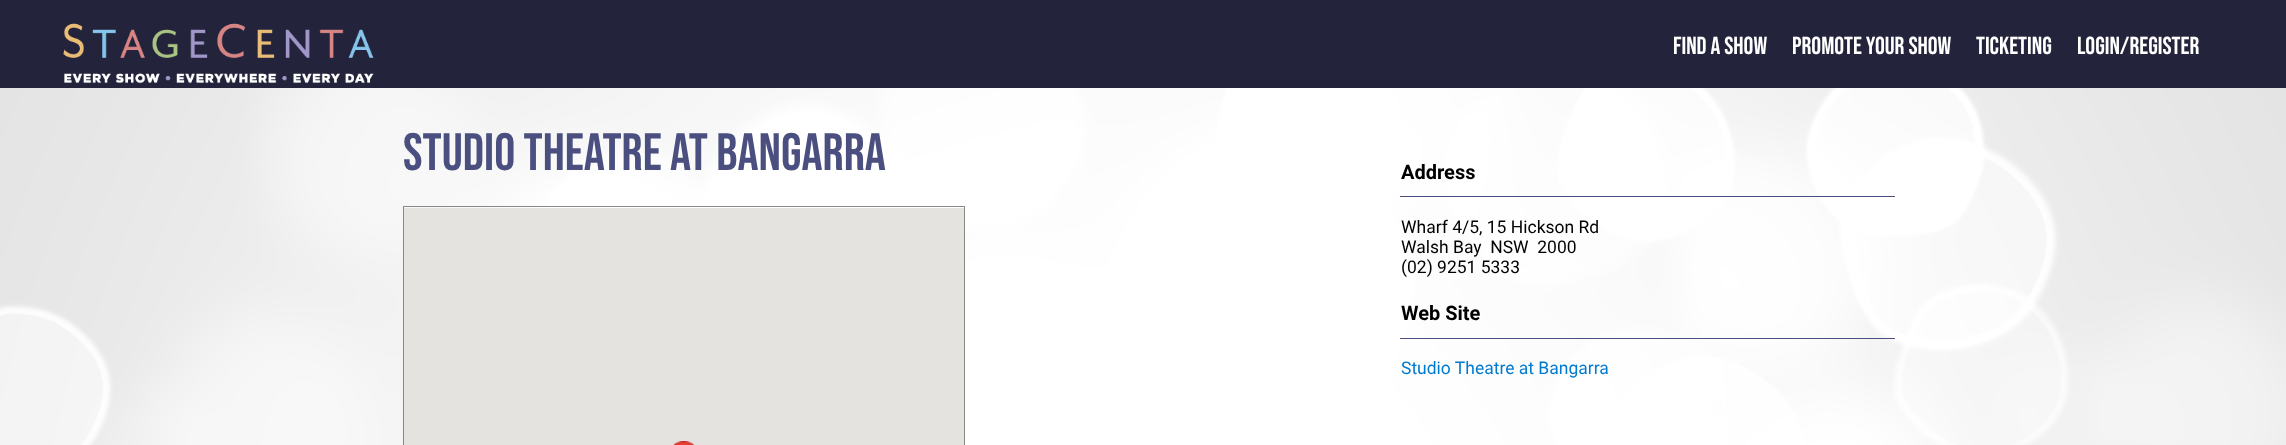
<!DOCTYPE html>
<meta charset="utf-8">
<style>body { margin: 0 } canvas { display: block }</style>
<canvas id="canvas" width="2286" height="445"></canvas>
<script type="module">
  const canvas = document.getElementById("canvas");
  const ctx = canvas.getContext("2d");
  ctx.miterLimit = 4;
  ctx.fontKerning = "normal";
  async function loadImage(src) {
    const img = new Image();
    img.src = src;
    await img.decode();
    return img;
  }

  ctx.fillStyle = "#ffffff";
  ctx.fillRect(0, 0, 2286, 445);
  ctx.drawImage(await loadImage("img1.png"), 0, 88, 2286, 357);
  ctx.fillStyle = "#23243b";
  ctx.fillRect(0, 0, 2286, 88);
  ctx.drawImage(await loadImage("img2.png"), 63, 23, 311, 61);
  ctx.font = "24.5px Bebas Neue";
  ctx.fillStyle = "#ffffff";
  ctx.fillText("FIND A SHOW", 1673, 54);
  ctx.fillText("PROMOTE YOUR SHOW", 1792, 54);
  ctx.fillText("TICKETING", 1976, 54);
  ctx.fillText("LOGIN/REGISTER", 2077, 54);
  ctx.font = "52.5px Bebas Neue";
  ctx.fillStyle = "#4a4f7f";
  ctx.fillText("STUDIO THEATRE AT BANGARRA", 403, 170);
  ctx.strokeStyle = "#888888";
  ctx.strokeRect(403.5, 206.5, 561, 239);
  ctx.fillStyle = "#e5e3df";
  ctx.fillRect(404, 208, 560, 237);
  ctx.drawImage(await loadImage("img3.png"), 673, 441, 21, 4);
  ctx.fillStyle = "#4a4f7f";
  ctx.fillRect(1400, 196, 495, 1);
  ctx.font = "bold 20px Roboto";
  ctx.fillStyle = "#000000";
  ctx.fillText("Address", 1401, 179);
  ctx.font = "17.5px Roboto";
  ctx.fillText("Wharf 4/5, 15 Hickson Rd", 1401, 233);
  ctx.fillText("Walsh Bay  NSW  2000", 1401, 253);
  ctx.fillText("(02) 9251 5333", 1401, 273);
  ctx.fillStyle = "#4a4f7f";
  ctx.fillRect(1400, 338, 495, 1);
  ctx.font = "bold 20px Roboto";
  ctx.fillStyle = "#000000";
  ctx.fillText("Web Site", 1401, 320);
  ctx.font = "17.5px Roboto";
  ctx.fillStyle = "#007ace";
  ctx.fillText("Studio Theatre at Bangarra", 1401, 374);
</script>
